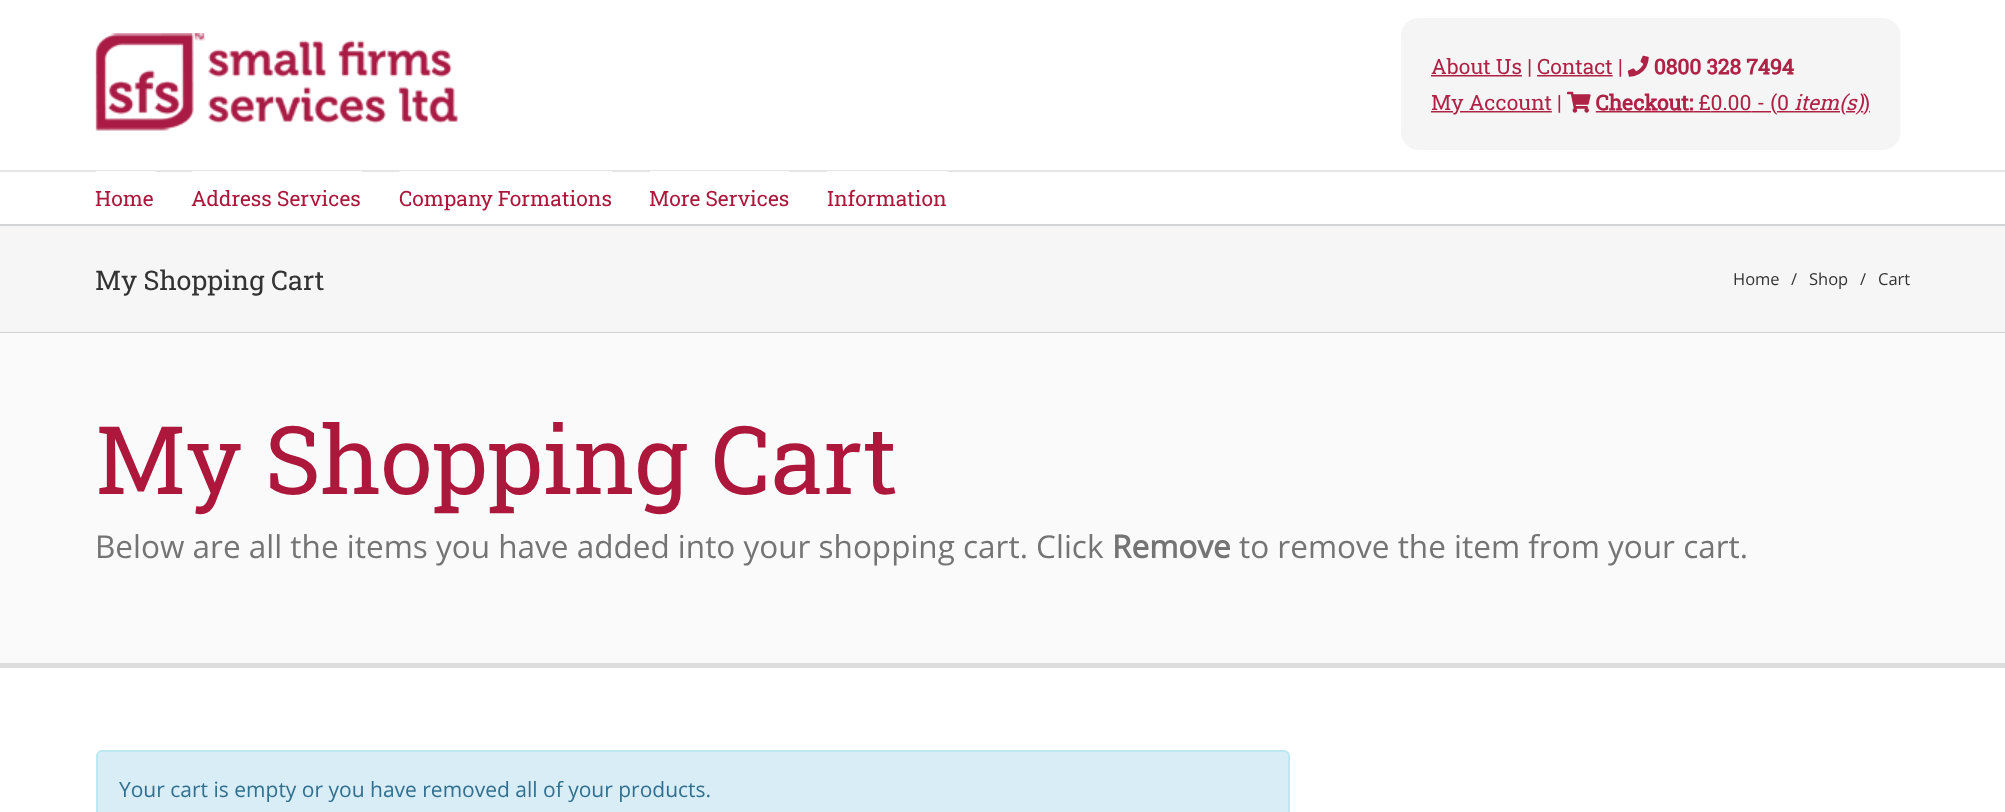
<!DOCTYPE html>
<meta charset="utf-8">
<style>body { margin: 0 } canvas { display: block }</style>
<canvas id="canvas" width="2005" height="812"></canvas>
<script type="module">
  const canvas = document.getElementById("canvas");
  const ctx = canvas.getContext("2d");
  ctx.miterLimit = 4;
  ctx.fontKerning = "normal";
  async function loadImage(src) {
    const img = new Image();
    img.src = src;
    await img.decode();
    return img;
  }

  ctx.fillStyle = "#ffffff";
  ctx.fillRect(0, 0, 2005, 812);
  ctx.fillStyle = "#d2d3d4";
  ctx.fillRect(0, 224, 2005, 2);
  ctx.drawImage(await loadImage("img1.png"), 95, 33, 363, 98);
  ctx.drawImage(await loadImage("img2.png"), 1401, 18, 500, 132);
  ctx.fillStyle = "#e5e5e5";
  ctx.fillRect(0, 170, 2005, 2);
  ctx.fillStyle = "#ffffff";
  ctx.fillRect(96, 171, 59, 1);
  ctx.font = "21px Roboto Slab";
  ctx.fillStyle = "#ac173b";
  ctx.fillText("Home", 95, 206);
  ctx.fillStyle = "#ffffff";
  ctx.fillRect(192, 171, 170, 1);
  ctx.fillStyle = "#ac173b";
  ctx.fillText("Address Services", 191, 206);
  ctx.fillStyle = "#ffffff";
  ctx.fillRect(399, 171, 213, 1);
  ctx.fillStyle = "#ac173b";
  ctx.fillText("Company Formations", 399, 206);
  ctx.fillStyle = "#ffffff";
  ctx.fillRect(650, 171, 139, 1);
  ctx.fillStyle = "#ac173b";
  ctx.fillText("More Services", 649, 206);
  ctx.fillStyle = "#ffffff";
  ctx.fillRect(827, 171, 120, 1);
  ctx.fillStyle = "#ac173b";
  ctx.fillText("Information", 827, 206);
  ctx.fillStyle = "#f6f6f6";
  ctx.fillRect(0, 226, 2005, 106);
  ctx.fillStyle = "#d2d3d4";
  ctx.fillRect(0, 332, 2005, 1);
  ctx.font = "27px Roboto Slab";
  ctx.fillStyle = "#333333";
  ctx.fillText("My Shopping Cart", 95, 290);
  ctx.font = "16.5px Open Sans";
  ctx.fillText("Home", 1733, 285);
  ctx.fillText("/", 1791, 285);
  ctx.fillText("Shop", 1809, 285);
  ctx.fillText("/", 1860, 285);
  ctx.fillText("Cart", 1878, 285);
  ctx.fillStyle = "#fafafa";
  ctx.fillRect(0, 333, 2005, 330);
  ctx.fillStyle = "#dddddd";
  ctx.fillRect(0, 663, 2005, 5);
  ctx.font = "94.5px Roboto Slab";
  ctx.fillStyle = "#ac173b";
  ctx.fillText("My Shopping Cart", 95, 494);
  ctx.font = "31.5px Open Sans";
  ctx.fillStyle = "#747474";
  ctx.fillText("Below are all the items you have added into your shopping cart. Click", 95, 558);
  ctx.font = "bold 31.5px Open Sans";
  ctx.fillText("Remove", 1112, 558);
  ctx.font = "31.5px Open Sans";
  ctx.fillText("to remove the item from your cart.", 1239, 558);
  ctx.fillStyle = "#d9edf7";
  ctx.beginPath();
  ctx.roundRect(97, 751, 1192, 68, 5);
  ctx.fill();
  ctx.strokeStyle = "#bce8f1";
  ctx.lineWidth = 2;
  ctx.stroke();
  ctx.font = "21px Open Sans";
  ctx.fillStyle = "#31708f";
  ctx.fillText("Your cart is empty or you have removed all of your products.", 119, 797);
</script>
